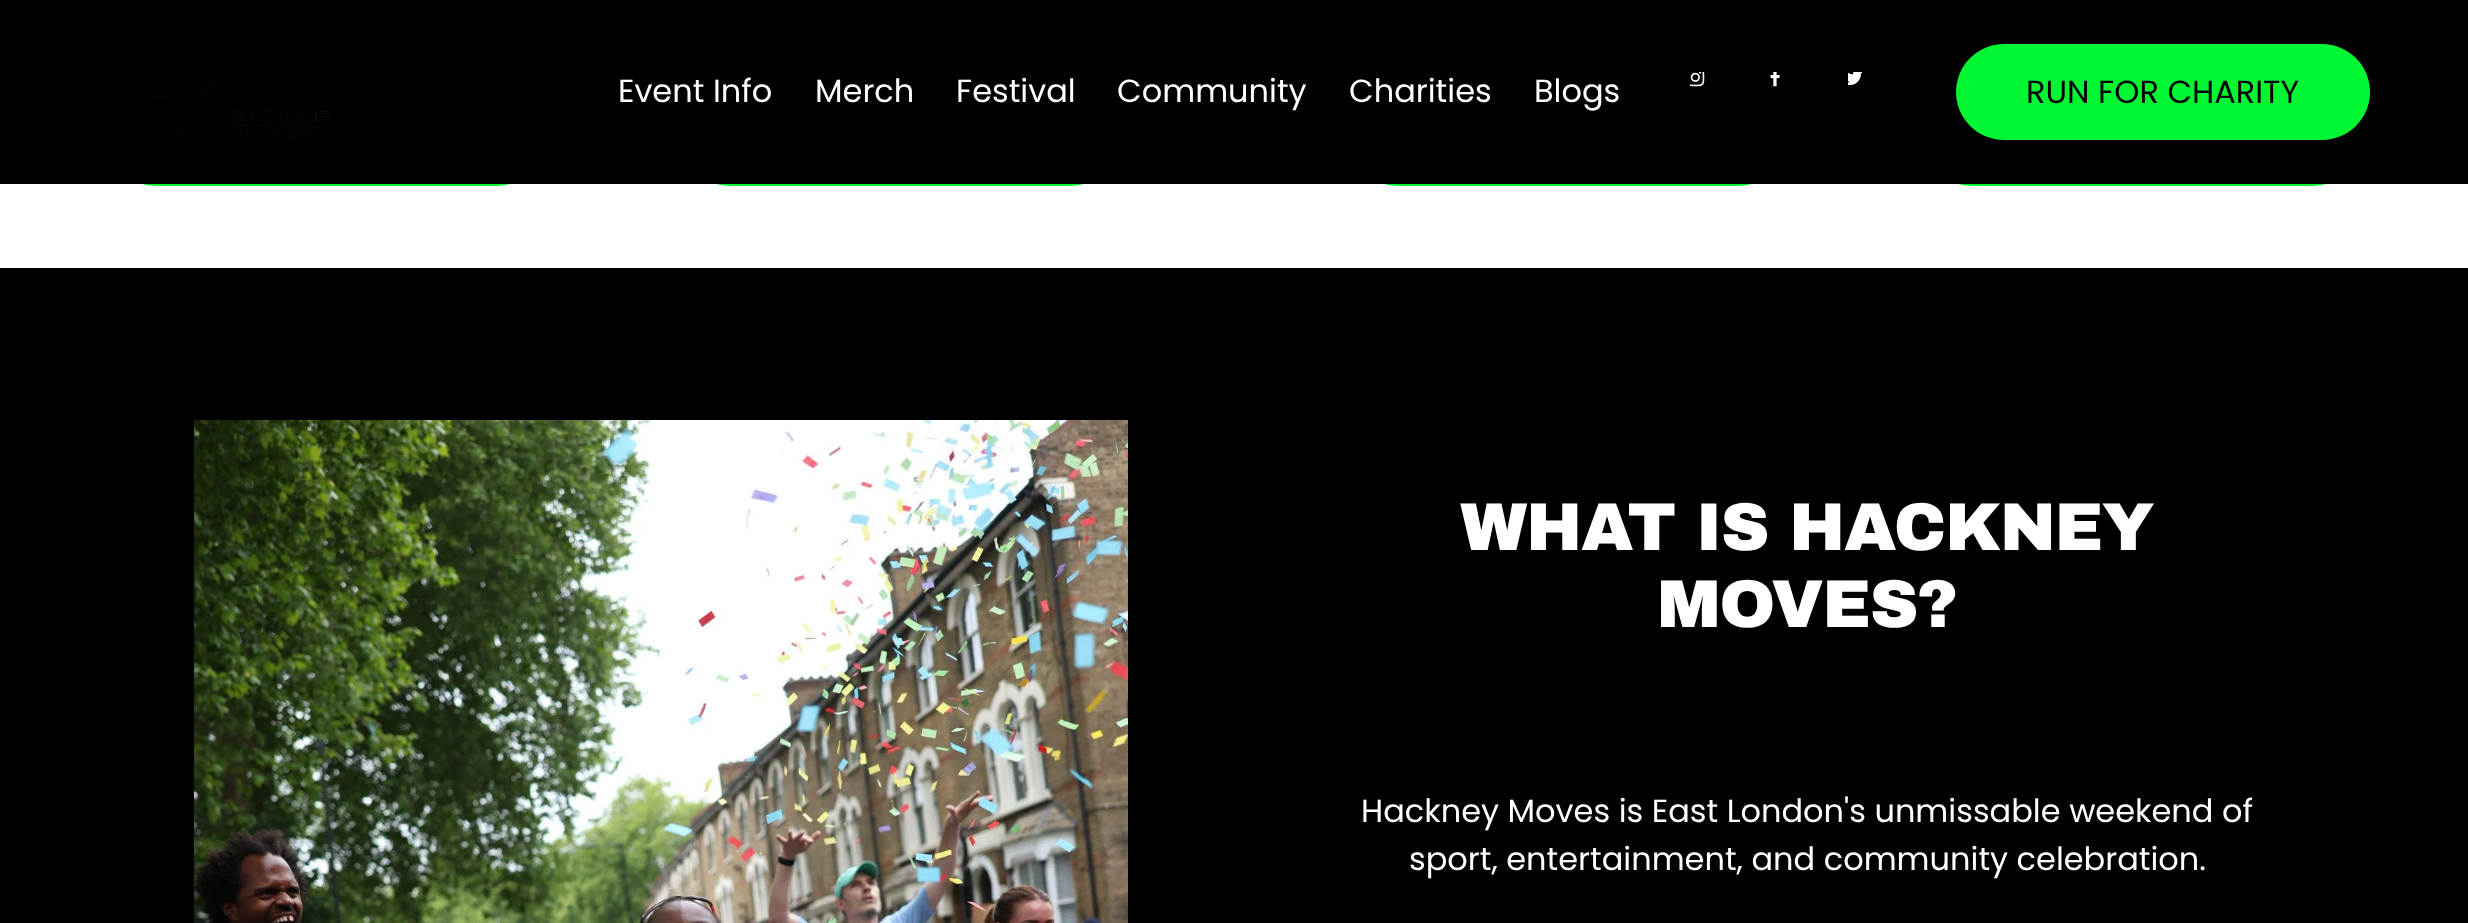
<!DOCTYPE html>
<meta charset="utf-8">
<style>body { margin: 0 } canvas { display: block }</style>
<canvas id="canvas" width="2468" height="923"></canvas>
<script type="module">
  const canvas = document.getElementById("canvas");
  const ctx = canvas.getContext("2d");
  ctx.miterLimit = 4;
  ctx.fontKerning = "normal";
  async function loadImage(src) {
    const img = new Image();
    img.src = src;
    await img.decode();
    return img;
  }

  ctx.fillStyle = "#ffffff";
  ctx.fillRect(0, 0, 2468, 923);
  ctx.fillStyle = "#00f632";
  ctx.beginPath();
  ctx.roundRect(98, 66, 456, 120, 60);
  ctx.fill();
  ctx.beginPath();
  ctx.roundRect(672, 66, 456, 120, 60);
  ctx.fill();
  ctx.beginPath();
  ctx.roundRect(1340, 66, 456, 120, 60);
  ctx.fill();
  ctx.beginPath();
  ctx.roundRect(1914, 66, 456, 120, 60);
  ctx.fill();
  ctx.fillStyle = "#000000";
  ctx.fillRect(0, 0, 2468, 184);
  ctx.drawImage(await loadImage("img1.png"), 98, 44, 250, 94);
  ctx.font = "32px Poppins";
  ctx.fillStyle = "#ffffff";
  ctx.fillText("Event Info", 618, 102);
  ctx.fillText("Merch", 815, 102);
  ctx.fillText("Festival", 956, 102);
  ctx.fillText("Community", 1117, 102);
  ctx.fillText("Charities", 1349, 102);
  ctx.fillText("Blogs", 1534, 102);
  ctx.drawImage(await loadImage("img2.png"), 1690, 72, 15, 15);
  ctx.drawImage(await loadImage("img3.png"), 1770, 72, 10, 15);
  ctx.drawImage(await loadImage("img4.png"), 1848, 72, 15, 14);
  ctx.fillStyle = "#00f632";
  ctx.beginPath();
  ctx.roundRect(1956, 44, 414, 96, 48);
  ctx.fill();
  ctx.fillStyle = "#000000";
  ctx.fillText("RUN FOR CHARITY", 2026, 103);
  ctx.fillRect(0, 268, 2468, 655);
  ctx.drawImage(await loadImage("img5.png"), 194, 420, 934, 503);
  ctx.letterSpacing = "-1.4px";
  ctx.font = "900 67.5px Archivo Black";
  ctx.fillStyle = "#ffffff";
  ctx.fillText("WHAT IS HACKNEY", 1460, 550);
  ctx.fillText("MOVES?", 1657, 627);
  ctx.letterSpacing = "0px";
  ctx.font = "32px Poppins";
  ctx.fillText("Hackney Moves is East London's unmissable weekend of", 1361, 822);
  ctx.fillText("sport, entertainment, and community celebration.", 1409, 870);
</script>
